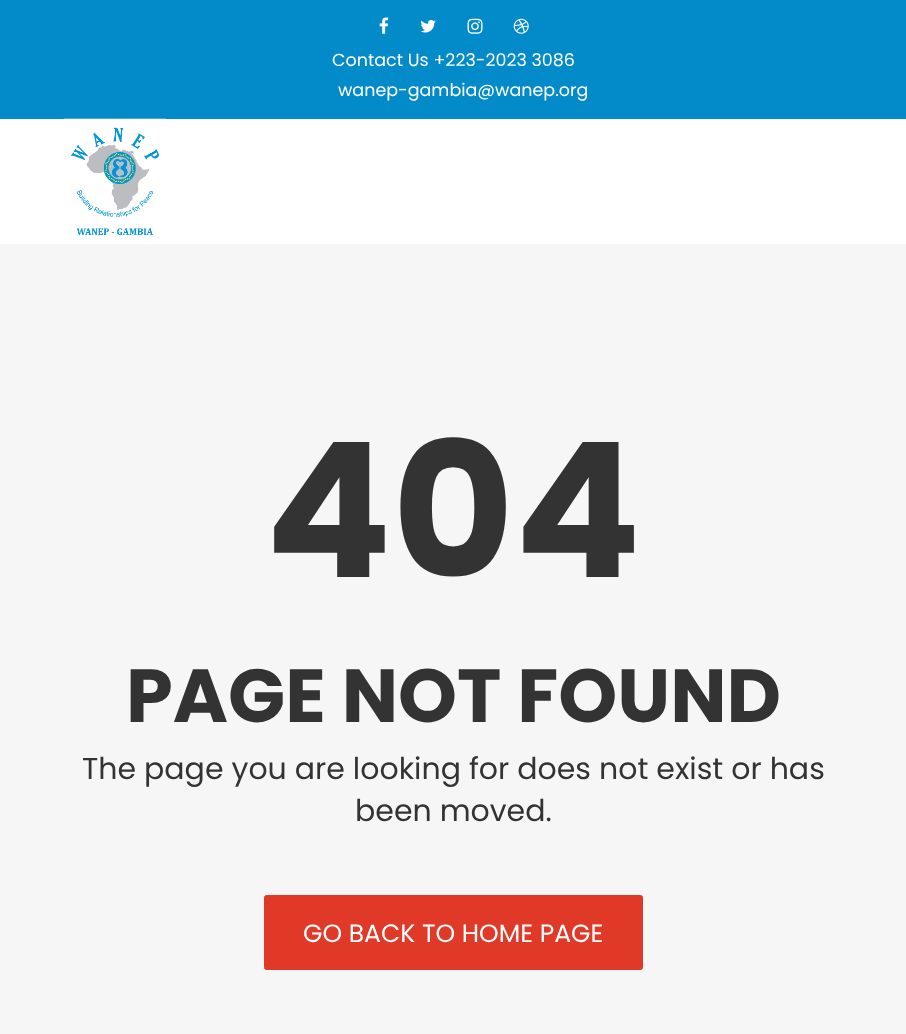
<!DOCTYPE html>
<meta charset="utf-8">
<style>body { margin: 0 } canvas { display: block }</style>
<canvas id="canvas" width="906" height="1034"></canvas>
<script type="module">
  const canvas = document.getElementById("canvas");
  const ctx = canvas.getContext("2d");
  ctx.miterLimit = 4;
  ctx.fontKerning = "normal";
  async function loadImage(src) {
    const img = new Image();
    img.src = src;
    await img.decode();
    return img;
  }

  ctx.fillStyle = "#ffffff";
  ctx.fillRect(0, 0, 906, 1034);
  ctx.fillStyle = "#038bc9";
  ctx.fillRect(0, 0, 906, 119);
  ctx.drawImage(await loadImage("img1.png"), 379, 17, 10, 17);
  ctx.drawImage(await loadImage("img2.png"), 420, 20, 16, 13);
  ctx.drawImage(await loadImage("img3.png"), 467, 18, 16, 16);
  ctx.drawImage(await loadImage("img4.png"), 513, 18, 16, 16);
  ctx.font = "17.5px Poppins";
  ctx.fillStyle = "#ffffff";
  ctx.fillText("Contact Us +223-2023 3086", 332, 66);
  ctx.fillText("wanep-gambia@wanep.org", 338, 96);
  ctx.drawImage(await loadImage("img5.png"), 63, 118, 104, 117);
  ctx.fillStyle = "#f6f6f6";
  ctx.fillRect(0, 244, 906, 790);
  ctx.font = "bold 187.5px Poppins";
  ctx.fillStyle = "#333333";
  ctx.fillText("404", 265, 577);
  ctx.font = "bold 75px Poppins";
  ctx.fillText("PAGE NOT FOUND", 126, 722);
  ctx.font = "30px Poppins";
  ctx.fillText("The page you are looking for does not exist or has", 82, 779);
  ctx.fillText("been moved.", 355, 821);
  ctx.fillStyle = "#e03927";
  ctx.beginPath();
  ctx.roundRect(264.5, 895.5, 378, 74, 2);
  ctx.fill();
  ctx.strokeStyle = "#e03927";
  ctx.stroke();
  ctx.font = "25px Poppins";
  ctx.fillStyle = "#ffffff";
  ctx.fillText("GO BACK TO HOME PAGE", 303, 942);
</script>
